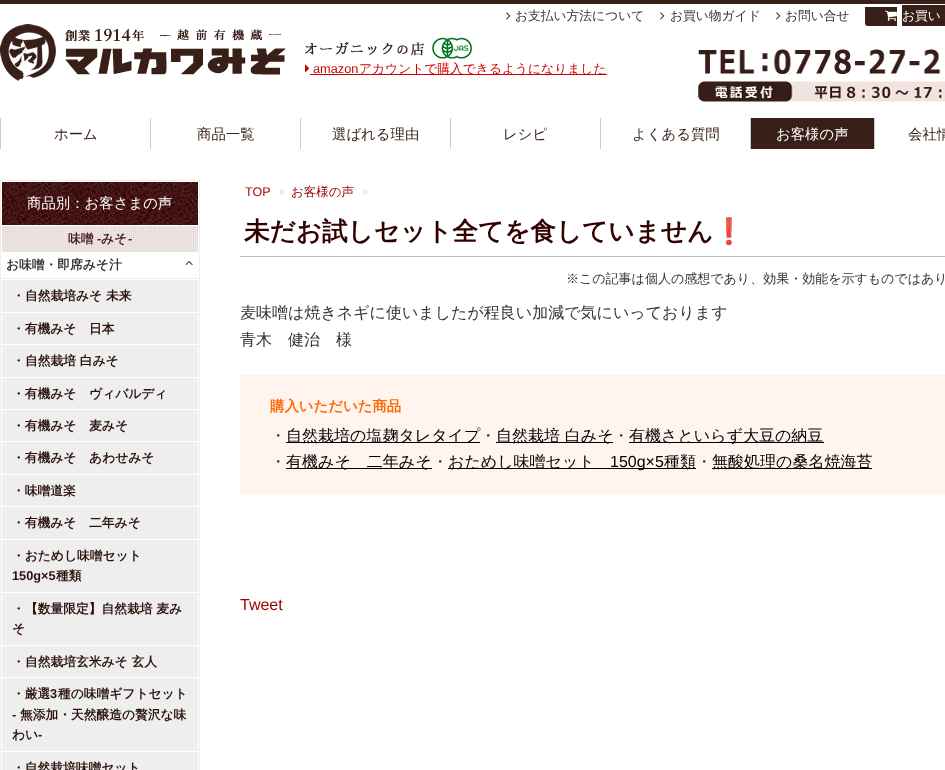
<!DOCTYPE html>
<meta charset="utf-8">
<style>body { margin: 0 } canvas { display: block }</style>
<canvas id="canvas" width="945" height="770"></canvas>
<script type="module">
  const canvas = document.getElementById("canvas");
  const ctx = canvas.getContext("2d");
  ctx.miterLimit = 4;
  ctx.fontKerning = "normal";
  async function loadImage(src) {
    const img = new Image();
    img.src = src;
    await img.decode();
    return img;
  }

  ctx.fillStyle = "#ffffff";
  ctx.fillRect(0, 0, 945, 770);
  ctx.fillStyle = "#381f18";
  ctx.fillRect(0, 0, 945, 4);
  ctx.fillStyle = "#fafafa";
  ctx.fillRect(0, 159, 945, 1);
  ctx.drawImage(await loadImage("img1.png"), 506, 12, 5, 8);
  ctx.font = "500 12.75px WenQuanYi Zen Hei";
  ctx.fillStyle = "#333333";
  ctx.fillText("お支払い方法について", 515, 20);
  ctx.drawImage(await loadImage("img1.png"), 660, 12, 5, 8);
  ctx.fillText("お買い物ガイド", 670, 20);
  ctx.drawImage(await loadImage("img1.png"), 776, 12, 5, 8);
  ctx.fillText("お問い合せ", 785, 20);
  ctx.fillStyle = "#381f18";
  ctx.beginPath();
  ctx.roundRect(865, 7, 32, 19, [0, 0, 0, 3]);
  ctx.fill();
  ctx.fillRect(902, 5, 43, 21);
  ctx.drawImage(await loadImage("img2.png"), 885, 10, 12, 11);
  ctx.fillStyle = "#ffffff";
  ctx.fillText("お買い", 902, 20);
  ctx.drawImage(await loadImage("img3.png"), 0, 24, 286, 57);
  ctx.drawImage(await loadImage("img4.png"), 305, 37, 168, 22);
  ctx.drawImage(await loadImage("img5.png"), 698, 49, 247, 53);
  ctx.drawImage(await loadImage("img6.png"), 305, 64, 5, 8);
  ctx.font = "12.75px Liberation Sans";
  ctx.fillStyle = "#cc0000";
  ctx.fillText("amazon", 313, 73);
  ctx.fillRect(310, 74, 297, 1);
  ctx.font = "500 12.75px WenQuanYi Zen Hei";
  ctx.fillText("アカウントで購入できるようになりました", 359, 73);
  ctx.fillStyle = "#cccccc";
  ctx.fillRect(0, 118, 1, 31);
  ctx.font = "500 14.4px WenQuanYi Zen Hei";
  ctx.fillStyle = "#381f18";
  ctx.fillText("ホーム", 54, 139);
  ctx.fillStyle = "#cccccc";
  ctx.fillRect(150, 118, 1, 31);
  ctx.fillStyle = "#381f18";
  ctx.fillText("商品一覧", 197, 139);
  ctx.fillStyle = "#cccccc";
  ctx.fillRect(300, 118, 1, 31);
  ctx.fillStyle = "#381f18";
  ctx.fillText("選ばれる理由", 332, 139);
  ctx.fillStyle = "#cccccc";
  ctx.fillRect(450, 118, 1, 31);
  ctx.fillStyle = "#381f18";
  ctx.fillText("レシピ", 503, 139);
  ctx.fillStyle = "#cccccc";
  ctx.fillRect(600, 118, 1, 31);
  ctx.fillStyle = "#381f18";
  ctx.fillText("よくある質問", 632, 139);
  ctx.fillRect(751, 118, 123, 31);
  ctx.fillStyle = "#cccccc";
  ctx.fillRect(750, 118, 1, 31);
  ctx.fillStyle = "#ffffff";
  ctx.fillText("お客様の声", 776, 139);
  ctx.fillStyle = "#cccccc";
  ctx.fillRect(874, 118, 1, 31);
  ctx.fillStyle = "#381f18";
  ctx.fillText("会社情", 908, 139);
  ctx.strokeStyle = "#eeeeee";
  ctx.strokeRect(0.5, 180.5, 199, 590);
  ctx.drawImage(await loadImage("img7.png"), 2, 182, 196, 43);
  ctx.fillStyle = "#ffffff";
  ctx.fillText("商品別：お客さまの声", 27, 208);
  ctx.drawImage(await loadImage("img8.png"), 2, 226, 196, 26);
  ctx.font = "bold 12.75px WenQuanYi Zen Hei";
  ctx.fillStyle = "#491b1b";
  ctx.fillText("味噌", 68, 243);
  ctx.font = "bold 12.75px Liberation Sans";
  ctx.fillText("-", 97, 243);
  ctx.font = "bold 12.75px WenQuanYi Zen Hei";
  ctx.fillText("みそ", 101, 243);
  ctx.font = "bold 12.75px Liberation Sans";
  ctx.fillText("-", 128, 243);
  ctx.fillStyle = "#eeeeee";
  ctx.fillRect(2, 278, 196, 1);
  ctx.font = "bold 12.75px WenQuanYi Zen Hei";
  ctx.fillStyle = "#333333";
  ctx.fillText("お味噌・即席みそ汁", 6, 269);
  ctx.drawImage(await loadImage("img9.png"), 185, 261, 8, 4);
  ctx.fillStyle = "#eeeeee";
  ctx.fillRect(2, 280, 196, 32);
  ctx.fillStyle = "#2a120c";
  ctx.fillText("・", 12, 300);
  ctx.fillText("自然栽培みそ 未来", 25, 300);
  ctx.fillStyle = "#eeeeee";
  ctx.fillRect(2, 313, 196, 31);
  ctx.fillStyle = "#2a120c";
  ctx.fillText("・有機みそ　日本", 12, 333);
  ctx.fillStyle = "#eeeeee";
  ctx.fillRect(2, 345, 196, 32);
  ctx.fillStyle = "#2a120c";
  ctx.fillText("・", 12, 365);
  ctx.fillText("自然栽培 白みそ", 25, 365);
  ctx.fillStyle = "#eeeeee";
  ctx.fillRect(2, 378, 196, 31);
  ctx.fillStyle = "#2a120c";
  ctx.fillText("・有機みそ　ヴィバルディ", 12, 398);
  ctx.fillStyle = "#eeeeee";
  ctx.fillRect(2, 410, 196, 31);
  ctx.fillStyle = "#2a120c";
  ctx.fillText("・有機みそ　麦みそ", 12, 430);
  ctx.fillStyle = "#eeeeee";
  ctx.fillRect(2, 442, 196, 32);
  ctx.fillStyle = "#2a120c";
  ctx.fillText("・有機みそ　あわせみそ", 12, 462);
  ctx.fillStyle = "#eeeeee";
  ctx.fillRect(2, 475, 196, 31);
  ctx.fillStyle = "#2a120c";
  ctx.fillText("・味噌道楽", 12, 495);
  ctx.fillStyle = "#eeeeee";
  ctx.fillRect(2, 507, 196, 32);
  ctx.fillStyle = "#2a120c";
  ctx.fillText("・有機みそ　二年みそ", 12, 527);
  ctx.fillStyle = "#eeeeee";
  ctx.fillRect(2, 540, 196, 52);
  ctx.fillStyle = "#2a120c";
  ctx.fillText("・おためし味噌セット", 12, 560);
  ctx.font = "bold 12.75px Liberation Sans";
  ctx.fillText("150g×5", 12, 580);
  ctx.font = "bold 12.75px WenQuanYi Zen Hei";
  ctx.fillText("種類", 56, 580);
  ctx.fillStyle = "#eeeeee";
  ctx.fillRect(2, 593, 196, 52);
  ctx.fillStyle = "#2a120c";
  ctx.fillText("・", 12, 613);
  ctx.fillText("【数量限定】自然栽培 麦み", 25, 613);
  ctx.fillText("そ", 12, 633);
  ctx.fillStyle = "#eeeeee";
  ctx.fillRect(2, 646, 196, 31);
  ctx.fillStyle = "#2a120c";
  ctx.fillText("・", 12, 666);
  ctx.fillText("自然栽培玄米みそ 玄人", 25, 666);
  ctx.fillStyle = "#eeeeee";
  ctx.fillRect(2, 678, 196, 73);
  ctx.fillStyle = "#2a120c";
  ctx.fillText("・厳選", 12, 698);
  ctx.font = "bold 12.75px Liberation Sans";
  ctx.fillText("3", 50, 698);
  ctx.font = "bold 12.75px WenQuanYi Zen Hei";
  ctx.fillText("種の味噌ギフトセット", 58, 698);
  ctx.font = "bold 12.75px Liberation Sans";
  ctx.fillText("-", 12, 719);
  ctx.font = "bold 12.75px WenQuanYi Zen Hei";
  ctx.fillText("無添加・天然醸造の贅沢な味", 20, 719);
  ctx.fillText("わい", 12, 739);
  ctx.font = "bold 12.75px Liberation Sans";
  ctx.fillText("-", 38, 739);
  ctx.fillStyle = "#eeeeee";
  ctx.fillRect(2, 752, 196, 18);
  ctx.font = "bold 12.75px WenQuanYi Zen Hei";
  ctx.fillStyle = "#2a120c";
  ctx.fillText("・自然栽培味噌セット", 12, 772);
  ctx.drawImage(await loadImage("img10.png"), 280, 189, 6, 6);
  ctx.font = "12.5px Liberation Sans";
  ctx.fillStyle = "#990000";
  ctx.fillText("TOP", 245, 196);
  ctx.drawImage(await loadImage("img10.png"), 363, 189, 6, 6);
  ctx.font = "500 12.5px WenQuanYi Zen Hei";
  ctx.fillText("お客様の声", 291, 196);
  ctx.fillStyle = "#c8bbbb";
  ctx.fillRect(240, 256, 705, 1);
  ctx.font = "bold 25.6px WenQuanYi Zen Hei";
  ctx.fillStyle = "#330000";
  ctx.fillText("未だお試しセット全てを食していません", 244, 240);
  ctx.font = "bold 25.6px Noto Color Emoji";
  ctx.fillText("❗", 713, 240);
  ctx.font = "500 13px WenQuanYi Zen Hei";
  ctx.fillStyle = "#333333";
  ctx.fillText("※この記事は個人の感想であり、効果・効能を示すものではあり", 566, 283);
  ctx.font = "500 16px WenQuanYi Zen Hei";
  ctx.fillText("麦味噌は焼きネギに使いましたが程良い加減で気にいっております", 240, 318);
  ctx.fillText("青木　健治　様", 240, 345);
  ctx.fillStyle = "#fff4ee";
  ctx.fillRect(240, 375, 705, 119);
  ctx.font = "bold 14.4px WenQuanYi Zen Hei";
  ctx.fillStyle = "#ff6600";
  ctx.fillText("購入いただいた商品", 270, 411);
  ctx.font = "500 16px WenQuanYi Zen Hei";
  ctx.fillStyle = "#333333";
  ctx.fillText("・", 270, 441);
  ctx.fillStyle = "#000000";
  ctx.fillRect(286, 442, 194, 1);
  ctx.fillText("自然栽培の塩麹タレタイプ", 286, 441);
  ctx.fillStyle = "#333333";
  ctx.fillText("・", 480, 441);
  ctx.fillStyle = "#000000";
  ctx.fillRect(496, 442, 117, 1);
  ctx.fillText("自然栽培 白みそ", 496, 441);
  ctx.fillStyle = "#333333";
  ctx.fillText("・", 613, 441);
  ctx.fillStyle = "#000000";
  ctx.fillRect(629, 442, 195, 1);
  ctx.fillText("有機さといらず大豆の納豆", 629, 441);
  ctx.fillStyle = "#333333";
  ctx.fillText("・", 270, 467);
  ctx.fillStyle = "#000000";
  ctx.fillRect(286, 468, 146, 1);
  ctx.fillText("有機みそ　二年みそ", 286, 467);
  ctx.fillStyle = "#333333";
  ctx.fillText("・", 432, 467);
  ctx.fillStyle = "#000000";
  ctx.fillRect(448, 468, 248, 1);
  ctx.fillText("おためし味噌セット", 448, 467);
  ctx.font = "16px Liberation Sans";
  ctx.fillText("150g×5", 610, 467);
  ctx.font = "500 16px WenQuanYi Zen Hei";
  ctx.fillText("種類", 664, 467);
  ctx.fillStyle = "#333333";
  ctx.fillText("・", 696, 467);
  ctx.fillStyle = "#000000";
  ctx.fillRect(712, 468, 160, 1);
  ctx.fillText("無酸処理の桑名焼海苔", 712, 467);
  ctx.font = "16px Liberation Sans";
  ctx.fillStyle = "#990000";
  ctx.fillText("Tweet", 240, 610);
</script>
